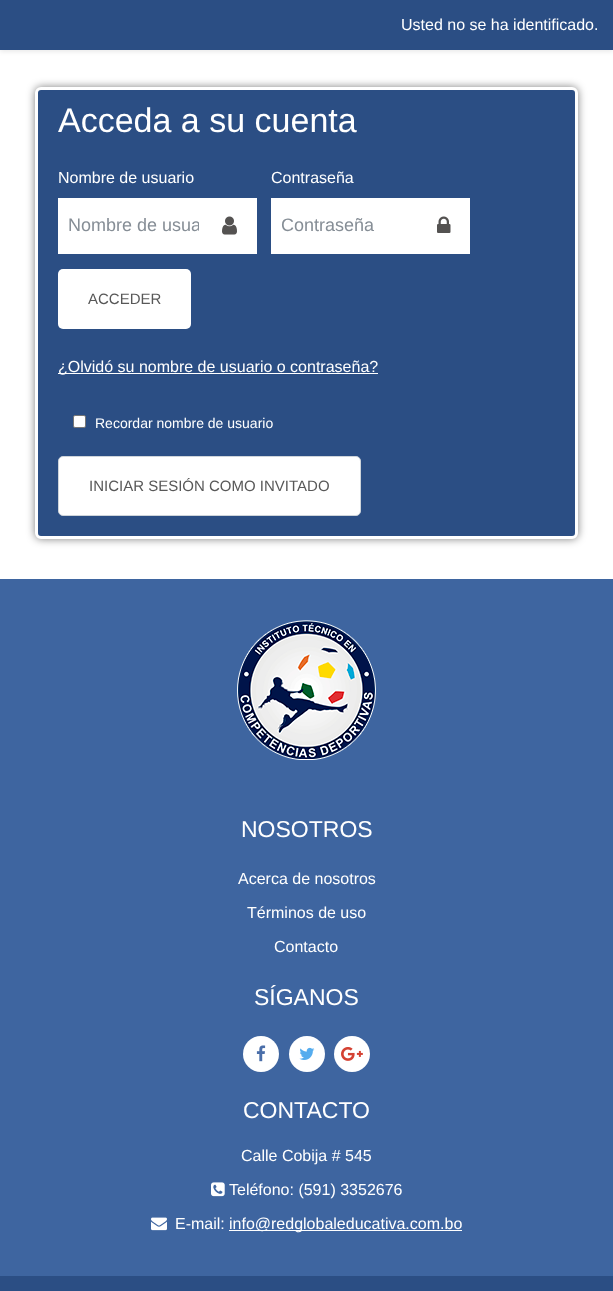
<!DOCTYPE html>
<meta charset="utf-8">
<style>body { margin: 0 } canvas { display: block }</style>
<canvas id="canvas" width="613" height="1291"></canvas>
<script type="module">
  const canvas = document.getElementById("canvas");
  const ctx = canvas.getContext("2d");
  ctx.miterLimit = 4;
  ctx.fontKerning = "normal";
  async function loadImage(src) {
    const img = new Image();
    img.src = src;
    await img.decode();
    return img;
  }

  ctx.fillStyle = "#ffffff";
  ctx.fillRect(0, 0, 613, 1291);
  ctx.fillStyle = "rgba(0, 0, 0, 0.08)";
  ctx.filter = "blur(2px)";
  ctx.beginPath();
  ctx.rect(0, 2, 613, 50);
  ctx.fill();
  ctx.filter = "none";
  ctx.fillStyle = "#2b4e84";
  ctx.fillRect(0, 0, 613, 50);
  ctx.font = "16px Liberation Sans";
  ctx.fillStyle = "#ffffff";
  ctx.fillText("Usted no se ha identificado.", 401, 30);
  ctx.fillStyle = "rgba(0, 0, 0, 0.5)";
  ctx.filter = "blur(4.5px)";
  ctx.beginPath();
  ctx.roundRect(35, 87, 543, 452, 6);
  ctx.fill();
  ctx.filter = "none";
  ctx.fillStyle = "#2b4e84";
  ctx.beginPath();
  ctx.roundRect(36.5, 88.5, 540, 449, 4.5);
  ctx.fill();
  ctx.strokeStyle = "#ffffff";
  ctx.lineWidth = 3;
  ctx.stroke();
  ctx.font = "34px Liberation Sans";
  ctx.fillStyle = "#ffffff";
  ctx.fillText("Acceda a su cuenta", 58, 132);
  ctx.font = "16px Liberation Sans";
  ctx.fillText("Nombre de usuario", 58, 183);
  ctx.fillRect(58, 198, 199, 56);
  ctx.save();
  ctx.beginPath();
  ctx.rect(68, 215, 131, 21);
  ctx.clip();
  ctx.font = "18px Liberation Sans";
  ctx.fillStyle = "#868e96";
  ctx.fillText("Nombre de usua", 68, 231);
  ctx.restore();
  ctx.drawImage(await loadImage("img1.png"), 222, 216, 15, 19);
  ctx.fillText("Contraseña", 271, 183);
  ctx.fillRect(271, 198, 199, 56);
  ctx.font = "18px Liberation Sans";
  ctx.fillStyle = "#868e96";
  ctx.fillText("Contraseña", 281, 231);
  ctx.drawImage(await loadImage("img2.png"), 437, 216, 14, 17);
  ctx.fillStyle = "#ffffff";
  ctx.beginPath();
  ctx.roundRect(58, 269, 133, 60, 5);
  ctx.fill();
  ctx.font = "15px Liberation Sans";
  ctx.fillStyle = "#585858";
  ctx.fillText("ACCEDER", 88, 304);
  ctx.fillStyle = "#ffffff";
  ctx.fillRect(58, 373, 320, 1);
  ctx.font = "16px Liberation Sans";
  ctx.fillText("¿Olvidó su nombre de usuario o contraseña?", 58, 372);
  ctx.beginPath();
  ctx.roundRect(73.5, 415.5, 12, 12, 1.5);
  ctx.fill();
  ctx.strokeStyle = "#767676";
  ctx.lineWidth = 1;
  ctx.stroke();
  ctx.font = "14px Liberation Sans";
  ctx.fillText("Recordar nombre de usuario", 95, 428);
  ctx.beginPath();
  ctx.roundRect(58.5, 456.5, 302, 59, 4.5);
  ctx.fill();
  ctx.strokeStyle = "#ced4da";
  ctx.stroke();
  ctx.font = "15px Liberation Sans";
  ctx.fillStyle = "#585858";
  ctx.fillText("INICIAR SESIÓN COMO INVITADO", 89, 491);
  ctx.fillStyle = "#3e65a0";
  ctx.fillRect(0, 579, 613, 697);
  ctx.drawImage(await loadImage("img3.png"), 237, 620, 139, 140);
  ctx.font = "23px Liberation Sans";
  ctx.fillStyle = "#ffffff";
  ctx.fillText("NOSOTROS", 241, 837);
  ctx.font = "16px Liberation Sans";
  ctx.fillText("Acerca de nosotros", 238, 884);
  ctx.fillText("Términos de uso", 247, 918);
  ctx.fillText("Contacto", 274, 952);
  ctx.font = "23px Liberation Sans";
  ctx.fillText("SÍGANOS", 254, 1005);
  ctx.beginPath();
  ctx.arc(261, 1054, 18, 0, Math.PI * 2);
  ctx.fill();
  ctx.drawImage(await loadImage("img4.png"), 256, 1045, 10, 17);
  ctx.beginPath();
  ctx.arc(307, 1054, 18, 0, Math.PI * 2);
  ctx.fill();
  ctx.drawImage(await loadImage("img5.png"), 299, 1047, 16, 13);
  ctx.beginPath();
  ctx.arc(352, 1054, 18, 0, Math.PI * 2);
  ctx.fill();
  ctx.drawImage(await loadImage("img6.png"), 341, 1047, 22, 14);
  ctx.fillText("CONTACTO", 243, 1118);
  ctx.font = "16px Liberation Sans";
  ctx.fillText("Calle Cobija # 545", 241, 1161);
  ctx.drawImage(await loadImage("img7.png"), 211, 1182, 14, 15);
  ctx.fillText("Teléfono: (591) 3352676", 229, 1195);
  ctx.drawImage(await loadImage("img8.png"), 151, 1217, 16, 14);
  ctx.fillText("E-mail:", 175, 1229);
  ctx.fillRect(229, 1230, 233, 1);
  ctx.fillText("info@redglobaleducativa.com.bo", 229, 1229);
  ctx.fillStyle = "#2b4e84";
  ctx.fillRect(0, 1276, 613, 15);
</script>
